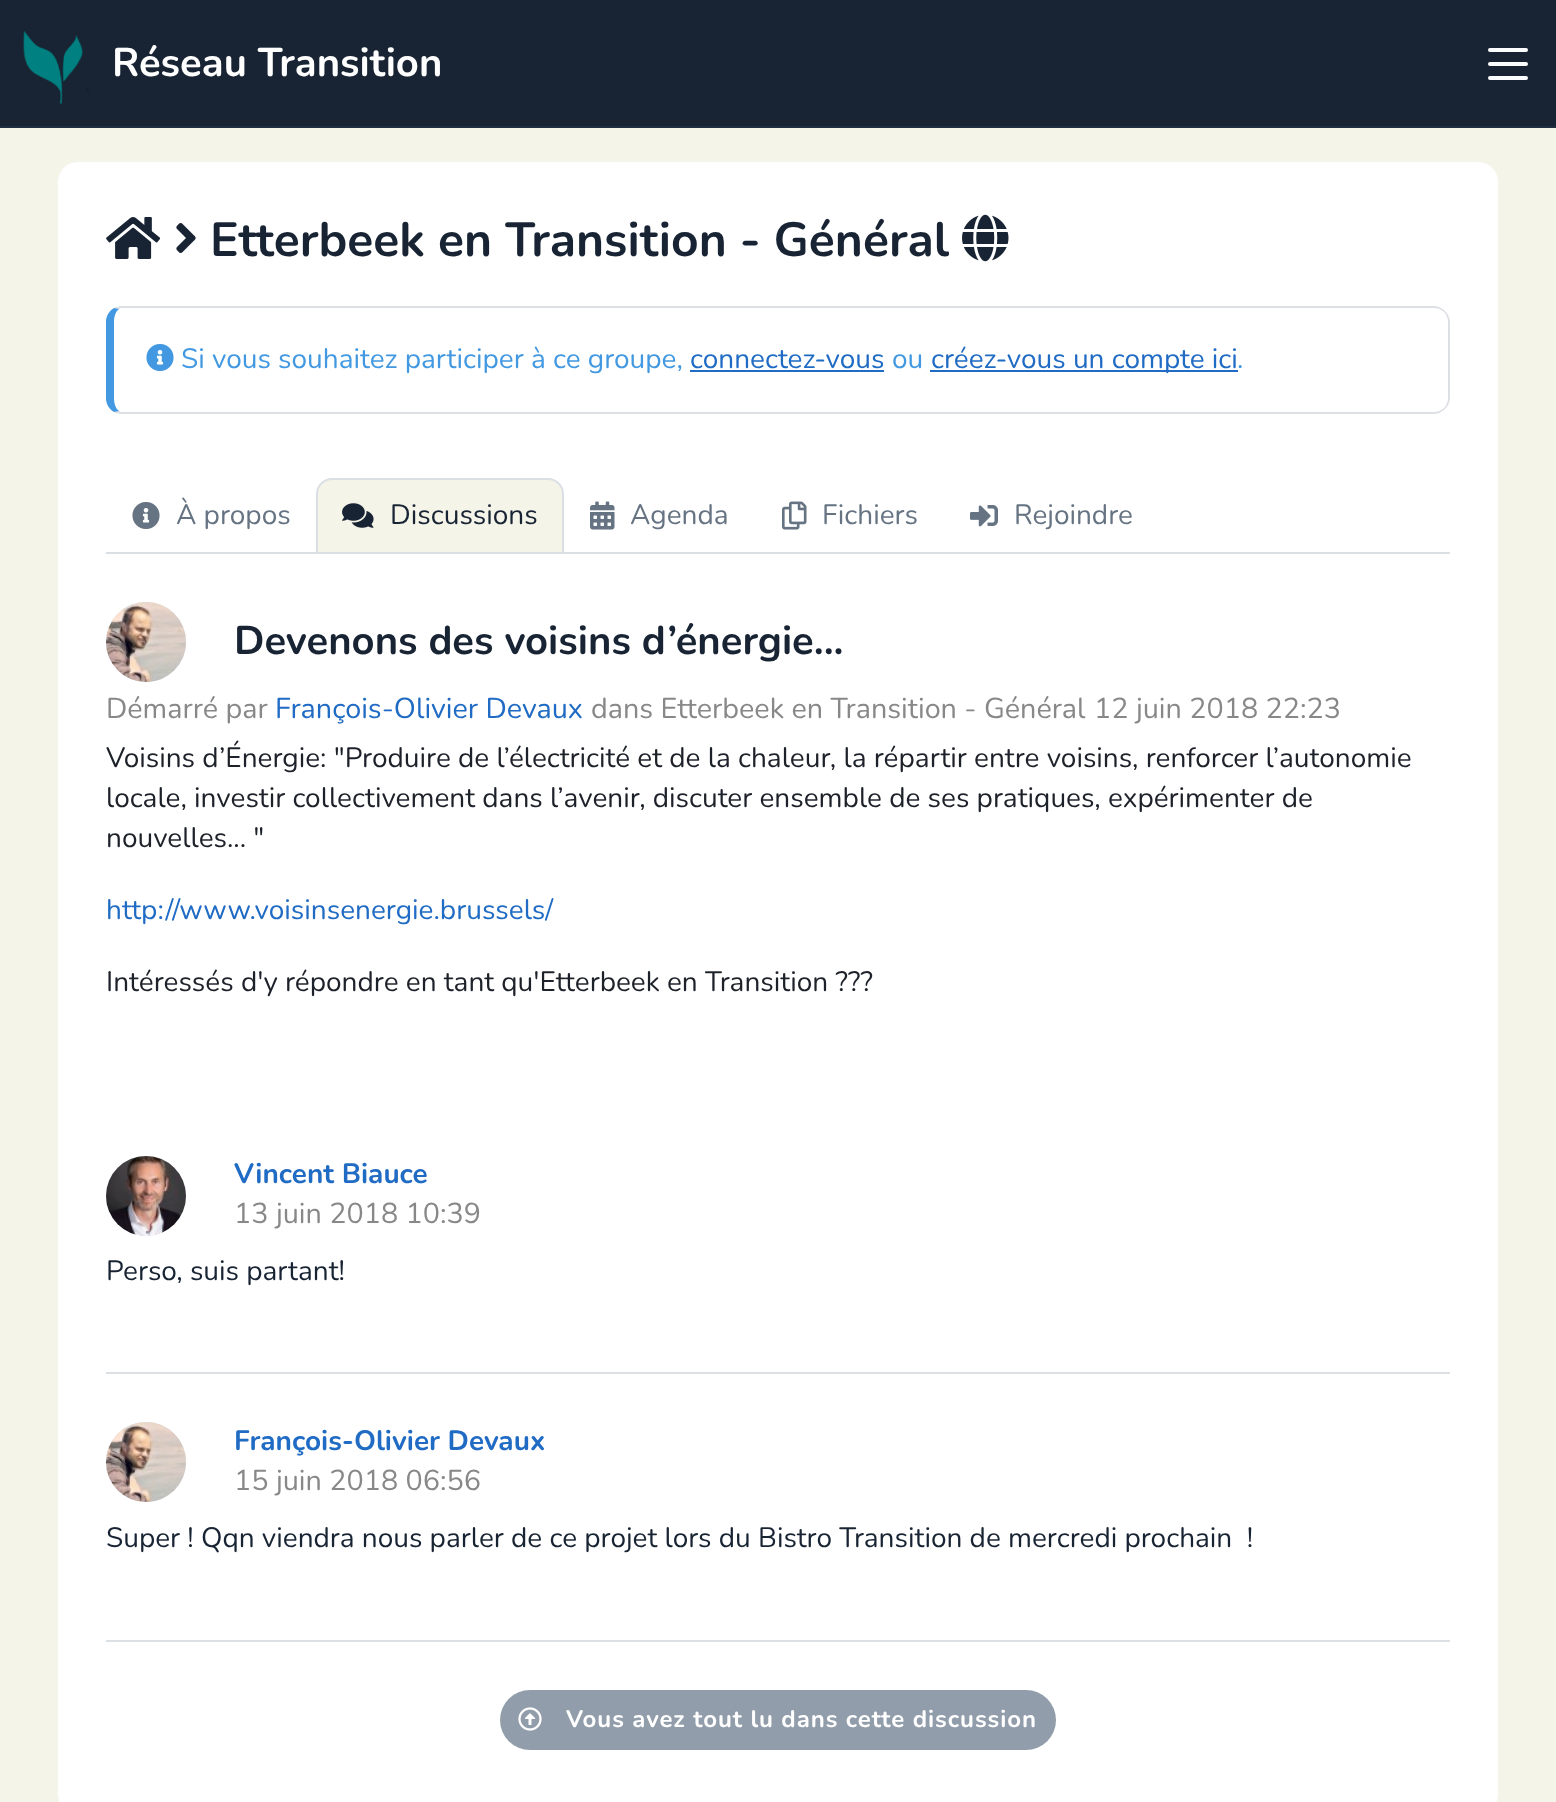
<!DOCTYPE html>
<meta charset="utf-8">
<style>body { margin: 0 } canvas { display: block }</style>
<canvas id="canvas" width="1556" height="1802"></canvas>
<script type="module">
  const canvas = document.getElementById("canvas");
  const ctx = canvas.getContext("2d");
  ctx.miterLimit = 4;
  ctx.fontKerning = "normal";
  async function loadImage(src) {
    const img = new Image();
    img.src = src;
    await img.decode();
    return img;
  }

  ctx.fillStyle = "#f5f4e9";
  ctx.fillRect(0, 0, 1556, 1802);
  ctx.fillStyle = "#182433";
  ctx.fillRect(0, 0, 1556, 126);
  ctx.fillStyle = "#1f2e41";
  ctx.fillRect(0, 126, 1556, 2);
  ctx.drawImage(await loadImage("img1.png"), 23, 31, 66, 73);
  ctx.font = "bold 40px Nunito";
  ctx.fillStyle = "#ffffff";
  ctx.fillText("Réseau Transition", 112, 76);
  ctx.fillStyle = "#fcfdfe";
  ctx.beginPath();
  ctx.roundRect(1488, 62, 40, 4, 2);
  ctx.fill();
  ctx.beginPath();
  ctx.roundRect(1488, 48, 40, 4, 2);
  ctx.fill();
  ctx.beginPath();
  ctx.roundRect(1488, 76, 40, 4, 2);
  ctx.fill();
  ctx.fillStyle = "#ffffff";
  ctx.beginPath();
  ctx.roundRect(58, 162, 1440, 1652, 20);
  ctx.fill();
  ctx.drawImage(await loadImage("img2.png"), 106, 217, 55, 42);
  ctx.drawImage(await loadImage("img3.png"), 176, 223, 20, 30);
  ctx.font = "bold 48px Nunito";
  ctx.fillStyle = "#182433";
  ctx.fillText("Etterbeek en Transition - Général", 210, 256);
  ctx.drawImage(await loadImage("img4.png"), 962, 214, 47, 48);
  ctx.fillStyle = "#dce0e5";
  ctx.beginPath();
  ctx.moveTo(122, 306);
  ctx.bezierCurveTo(119, 306, 116, 307, 114, 308);
  ctx.lineTo(119, 309);
  ctx.bezierCurveTo(120, 308, 121, 308, 122, 308);
  ctx.lineTo(1434, 308);
  ctx.bezierCurveTo(1438, 308, 1442, 310, 1444, 312);
  ctx.lineTo(1445, 311);
  ctx.bezierCurveTo(1442, 308, 1438, 306, 1434, 306);
  ctx.closePath();
  ctx.fill();
  ctx.fillStyle = "rgba(4, 32, 69, 0.14)";
  ctx.beginPath();
  ctx.moveTo(1450, 398);
  ctx.lineTo(1450, 322);
  ctx.bezierCurveTo(1450, 318, 1448, 314, 1445, 311);
  ctx.lineTo(1444, 312);
  ctx.bezierCurveTo(1446, 314, 1448, 318, 1448, 322);
  ctx.lineTo(1448, 398);
  ctx.bezierCurveTo(1448, 402, 1446, 406, 1444, 408);
  ctx.lineTo(1445, 409);
  ctx.bezierCurveTo(1448, 406, 1450, 402, 1450, 398);
  ctx.closePath();
  ctx.fill();
  ctx.beginPath();
  ctx.moveTo(122, 414);
  ctx.lineTo(1434, 414);
  ctx.bezierCurveTo(1438, 414, 1442, 412, 1445, 409);
  ctx.lineTo(1444, 408);
  ctx.bezierCurveTo(1442, 410, 1438, 412, 1434, 412);
  ctx.lineTo(122, 412);
  ctx.bezierCurveTo(121, 412, 120, 412, 119, 411);
  ctx.lineTo(114, 412);
  ctx.bezierCurveTo(116, 413, 119, 414, 122, 414);
  ctx.closePath();
  ctx.fill();
  ctx.fillStyle = "#4299e1";
  ctx.beginPath();
  ctx.moveTo(106, 322);
  ctx.lineTo(106, 398);
  ctx.bezierCurveTo(106, 404, 109, 409, 114, 412);
  ctx.lineTo(119, 411);
  ctx.bezierCurveTo(116, 409, 114, 404, 114, 398);
  ctx.lineTo(114, 322);
  ctx.bezierCurveTo(114, 316, 116, 311, 119, 309);
  ctx.lineTo(114, 308);
  ctx.bezierCurveTo(109, 311, 106, 316, 106, 322);
  ctx.closePath();
  ctx.fill();
  ctx.drawImage(await loadImage("img5.png"), 146, 344, 28, 27);
  ctx.font = "28px Nunito";
  ctx.fillText("Si vous souhaitez participer à ce groupe,", 181, 368);
  ctx.fillStyle = "#206bc4";
  ctx.fillText("connectez-vous", 690, 368);
  ctx.fillRect(690, 370, 194, 2);
  ctx.fillStyle = "#4299e1";
  ctx.fillText("ou", 892, 368);
  ctx.fillStyle = "#206bc4";
  ctx.fillRect(930, 370, 308, 2);
  ctx.fillText("créez-vous un compte ici", 931, 368);
  ctx.fillStyle = "#4299e1";
  ctx.fillText(".", 1237, 368);
  ctx.fillStyle = "#dadfe5";
  ctx.fillRect(106, 552, 1344, 2);
  ctx.drawImage(await loadImage("img6.png"), 132, 502, 28, 27);
  ctx.fillStyle = "#667382";
  ctx.fillText("À propos", 176, 524);
  ctx.fillStyle = "#f5f4e9";
  ctx.beginPath();
  ctx.roundRect(317, 479, 246, 74, [15, 15, 0, 0]);
  ctx.fill();
  ctx.strokeStyle = "#dadfe5";
  ctx.lineWidth = 2;
  ctx.stroke();
  ctx.drawImage(await loadImage("img7.png"), 342, 503, 32, 25);
  ctx.fillStyle = "#182433";
  ctx.fillText("Discussions", 390, 524);
  ctx.drawImage(await loadImage("img8.png"), 590, 501, 25, 29);
  ctx.fillStyle = "#667382";
  ctx.fillText("Agenda", 630, 524);
  ctx.drawImage(await loadImage("img9.png"), 782, 501, 25, 29);
  ctx.fillText("Fichiers", 822, 524);
  ctx.drawImage(await loadImage("img10.png"), 970, 505, 28, 22);
  ctx.fillText("Rejoindre", 1014, 524);
  ctx.fillStyle = "#f6f8fb";
  ctx.beginPath();
  ctx.arc(146, 642, 40, 0, Math.PI * 2);
  ctx.fill();
  ctx.beginPath();
  ctx.arc(146, 642, 39, 0, Math.PI * 2);
  ctx.strokeStyle = "rgba(4, 32, 69, 0.14)";
  ctx.stroke();
  ctx.drawImage(await loadImage("img11.png"), 106, 602, 80, 80);
  ctx.font = "bold 40px Nunito";
  ctx.fillStyle = "#182433";
  ctx.fillText("Devenons des voisins d’énergie...", 234, 654);
  ctx.font = "28.75px Nunito";
  ctx.fillStyle = "#888888";
  ctx.fillText("Démarré par", 106, 718);
  ctx.fillStyle = "#206bc4";
  ctx.fillText("François-Olivier Devaux", 275, 718);
  ctx.fillStyle = "#888888";
  ctx.fillText("dans Etterbeek en Transition - Général", 591, 718);
  ctx.fillText("12 juin 2018 22:23", 1094, 718);
  ctx.font = "28px Nunito";
  ctx.fillStyle = "#1d2129";
  ctx.fillText("Voisins d’Énergie: \"Produire de l’électricité et de la chaleur, la répartir entre voisins, renforcer l’autonomie", 106, 767);
  ctx.fillText("locale, investir collectivement dans l’avenir, discuter ensemble de ses pratiques, expérimenter de", 106, 807);
  ctx.fillText("nouvelles... \"", 106, 847);
  ctx.fillStyle = "#206bc4";
  ctx.fillText("http://www.voisinsenergie.brussels/", 106, 919);
  ctx.fillStyle = "#1d2129";
  ctx.fillText("Intéressés d'y répondre en tant qu'Etterbeek en Transition ???", 106, 991);
  ctx.fillStyle = "#dce0e5";
  ctx.fillRect(106, 1372, 1344, 2);
  ctx.fillStyle = "#f6f8fb";
  ctx.beginPath();
  ctx.arc(146, 1196, 40, 0, Math.PI * 2);
  ctx.fill();
  ctx.beginPath();
  ctx.arc(146, 1196, 39, 0, Math.PI * 2);
  ctx.stroke();
  ctx.drawImage(await loadImage("img12.png"), 106, 1156, 80, 80);
  ctx.font = "bold 28px Nunito";
  ctx.fillStyle = "#206bc4";
  ctx.fillText("Vincent Biauce", 234, 1183);
  ctx.font = "28.75px Nunito";
  ctx.fillStyle = "#888888";
  ctx.fillText("13 juin 2018 10:39", 234, 1223);
  ctx.font = "28px Nunito";
  ctx.fillStyle = "#182433";
  ctx.fillText("Perso, suis partant!", 106, 1280);
  ctx.fillStyle = "#dce0e5";
  ctx.fillRect(106, 1640, 1344, 2);
  ctx.fillStyle = "#f6f8fb";
  ctx.beginPath();
  ctx.arc(146, 1462, 40, 0, Math.PI * 2);
  ctx.fill();
  ctx.beginPath();
  ctx.arc(146, 1462, 39, 0, Math.PI * 2);
  ctx.stroke();
  ctx.drawImage(await loadImage("img11.png"), 106, 1422, 80, 80);
  ctx.font = "bold 28px Nunito";
  ctx.fillStyle = "#206bc4";
  ctx.fillText("François-Olivier Devaux", 234, 1450);
  ctx.font = "28.75px Nunito";
  ctx.fillStyle = "#888888";
  ctx.fillText("15 juin 2018 06:56", 234, 1490);
  ctx.font = "28px Nunito";
  ctx.fillStyle = "#182433";
  ctx.fillText("Super ! Qqn viendra nous parler de ce projet lors du Bistro Transition de mercredi prochain  !", 106, 1547);
  ctx.fillStyle = "#929dab";
  ctx.beginPath();
  ctx.roundRect(500, 1690, 556, 60, 30);
  ctx.fill();
  ctx.drawImage(await loadImage("img13.png"), 518, 1707, 24, 24);
  ctx.letterSpacing = "0.95px";
  ctx.font = "bold 24px Nunito";
  ctx.fillStyle = "#ffffff";
  ctx.fillText("Vous avez tout lu dans cette discussion", 566, 1727);
</script>
